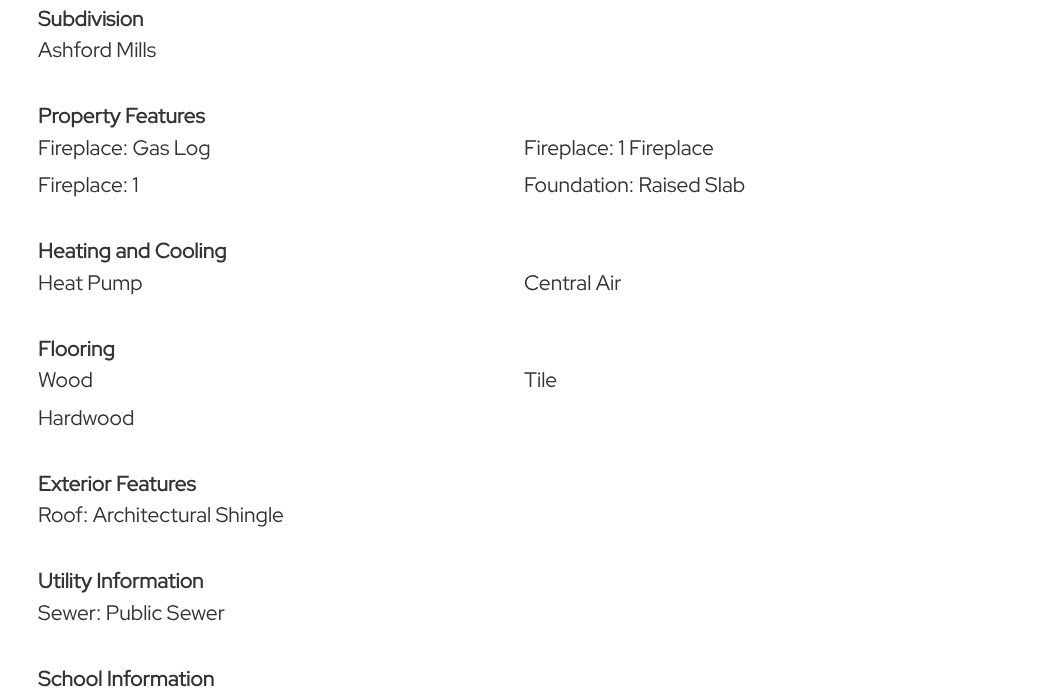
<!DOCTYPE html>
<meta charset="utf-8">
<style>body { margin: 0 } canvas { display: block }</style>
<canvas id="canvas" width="1046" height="689"></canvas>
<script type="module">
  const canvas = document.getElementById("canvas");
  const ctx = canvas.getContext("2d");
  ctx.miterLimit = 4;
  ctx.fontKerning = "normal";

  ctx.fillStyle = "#ffffff";
  ctx.fillRect(0, 0, 1046, 689);
  ctx.font = "bold 21px Red Hat Display";
  ctx.fillStyle = "#333333";
  ctx.fillText("Subdivision", 38, 26);
  ctx.font = "21px Red Hat Display";
  ctx.fillText("Ashford Mills", 38, 57);
  ctx.font = "bold 21px Red Hat Display";
  ctx.fillText("Property Features", 38, 123);
  ctx.font = "21px Red Hat Display";
  ctx.fillText("Fireplace: Gas Log", 38, 155);
  ctx.fillText("Fireplace: 1 Fireplace", 524, 155);
  ctx.fillText("Fireplace: 1", 38, 192);
  ctx.fillText("Foundation: Raised Slab", 524, 192);
  ctx.font = "bold 21px Red Hat Display";
  ctx.fillText("Heating and Cooling", 38, 258);
  ctx.font = "21px Red Hat Display";
  ctx.fillText("Heat Pump", 38, 290);
  ctx.fillText("Central Air", 524, 290);
  ctx.font = "bold 21px Red Hat Display";
  ctx.fillText("Flooring", 38, 356);
  ctx.font = "21px Red Hat Display";
  ctx.fillText("Wood", 38, 387);
  ctx.fillText("Tile", 524, 387);
  ctx.fillText("Hardwood", 38, 425);
  ctx.font = "bold 21px Red Hat Display";
  ctx.fillText("Exterior Features", 38, 491);
  ctx.font = "21px Red Hat Display";
  ctx.fillText("Roof: Architectural Shingle", 38, 522);
  ctx.font = "bold 21px Red Hat Display";
  ctx.fillText("Utility Information", 38, 588);
  ctx.font = "21px Red Hat Display";
  ctx.fillText("Sewer: Public Sewer", 38, 620);
  ctx.font = "bold 21px Red Hat Display";
  ctx.fillText("School Information", 38, 686);
</script>
